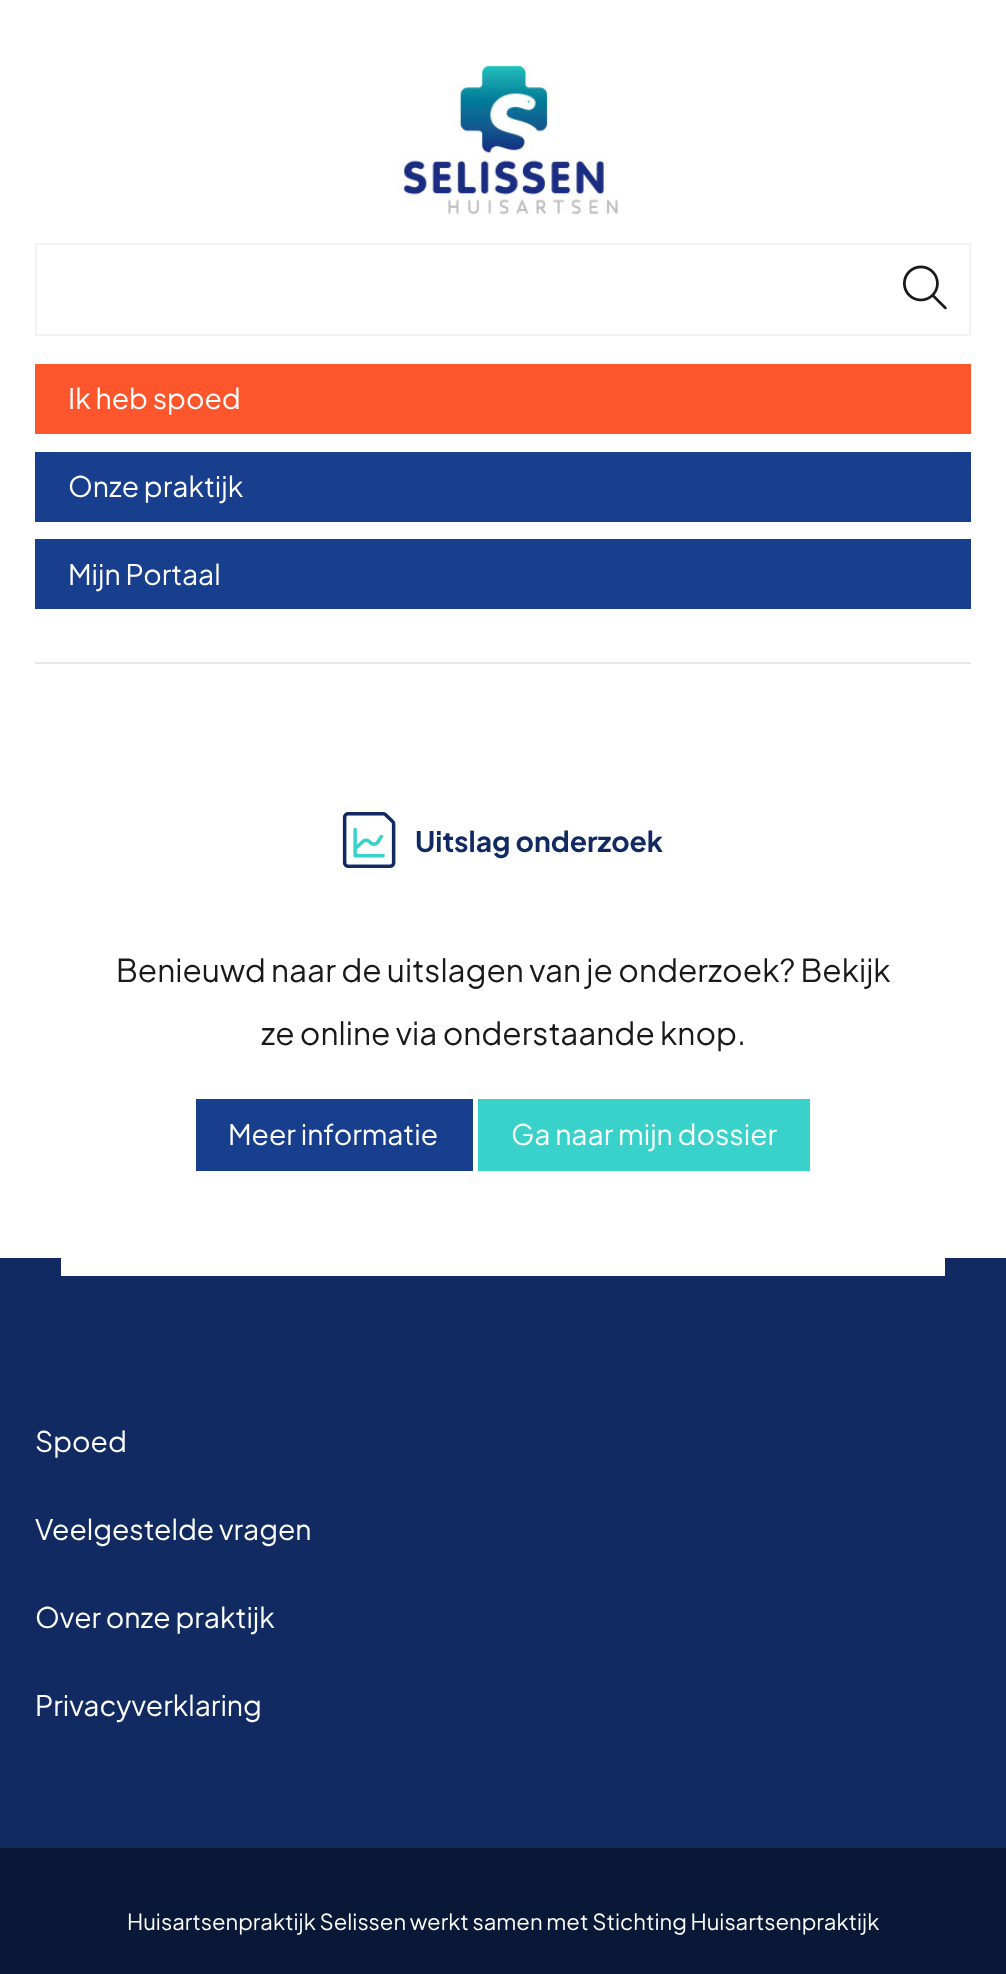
<!DOCTYPE html>
<meta charset="utf-8">
<style>body { margin: 0 } canvas { display: block }</style>
<canvas id="canvas" width="1006" height="1974"></canvas>
<script type="module">
  const canvas = document.getElementById("canvas");
  const ctx = canvas.getContext("2d");
  ctx.miterLimit = 4;
  ctx.fontKerning = "normal";
  async function loadImage(src) {
    const img = new Image();
    img.src = src;
    await img.decode();
    return img;
  }

  ctx.fillStyle = "#ffffff";
  ctx.fillRect(0, 0, 1006, 1974);
  ctx.drawImage(await loadImage("img1.png"), 398, 64, 221, 151);
  ctx.strokeStyle = "#f2f2f2";
  ctx.lineWidth = 2;
  ctx.strokeRect(36, 244, 934, 91);
  ctx.drawImage(await loadImage("img2.png"), 903, 265, 44, 45);
  ctx.fillStyle = "#fe562c";
  ctx.fillRect(35, 364, 936, 70);
  ctx.font = "28.25px Plus Jakarta Sans";
  ctx.fillStyle = "#ffffff";
  ctx.fillText("Ik heb spoed", 68, 409);
  ctx.fillStyle = "#183e8e";
  ctx.fillRect(35, 452, 936, 70);
  ctx.fillStyle = "#ffffff";
  ctx.fillText("Onze praktijk", 68, 497);
  ctx.fillStyle = "#183e8e";
  ctx.fillRect(35, 539, 936, 70);
  ctx.fillStyle = "#ffffff";
  ctx.fillText("Mijn Portaal", 68, 585);
  ctx.fillStyle = "#e6e6e6";
  ctx.fillRect(35, 662, 936, 2);
  ctx.fillStyle = "#112b62";
  ctx.fillRect(0, 1258, 1006, 590);
  ctx.fillStyle = "#ffffff";
  ctx.fillRect(61, 1258, 884, 18);
  ctx.drawImage(await loadImage("img3.png"), 342, 812, 54, 56);
  ctx.font = "bold 28.25px Plus Jakarta Sans";
  ctx.fillStyle = "#112b62";
  ctx.fillText("Uitslag onderzoek", 415, 852);
  ctx.font = "31.5px Plus Jakarta Sans";
  ctx.fillStyle = "#191919";
  ctx.fillText("Benieuwd naar de uitslagen van je onderzoek? Bekijk", 116, 982);
  ctx.fillText("ze online via onderstaande knop.", 261, 1045);
  ctx.fillStyle = "#183e8e";
  ctx.fillRect(196, 1099, 277, 72);
  ctx.font = "28.25px Plus Jakarta Sans";
  ctx.fillStyle = "#ffffff";
  ctx.fillText("Meer informatie", 228, 1145);
  ctx.fillStyle = "#38d2cb";
  ctx.fillRect(478, 1099, 332, 72);
  ctx.fillStyle = "#ffffff";
  ctx.fillText("Ga naar mijn dossier", 511, 1145);
  ctx.fillText("Spoed", 35, 1452);
  ctx.fillText("Veelgestelde vragen", 35, 1540);
  ctx.fillText("Over onze praktijk", 35, 1628);
  ctx.fillText("Privacyverklaring", 35, 1716);
  ctx.fillStyle = "#091837";
  ctx.fillRect(0, 1848, 1006, 126);
  ctx.font = "22.05px Plus Jakarta Sans";
  ctx.fillStyle = "#ffffff";
  ctx.fillText("Huisartsenpraktijk Selissen werkt samen met Stichting Huisartsenpraktijk", 127, 1930);
</script>
